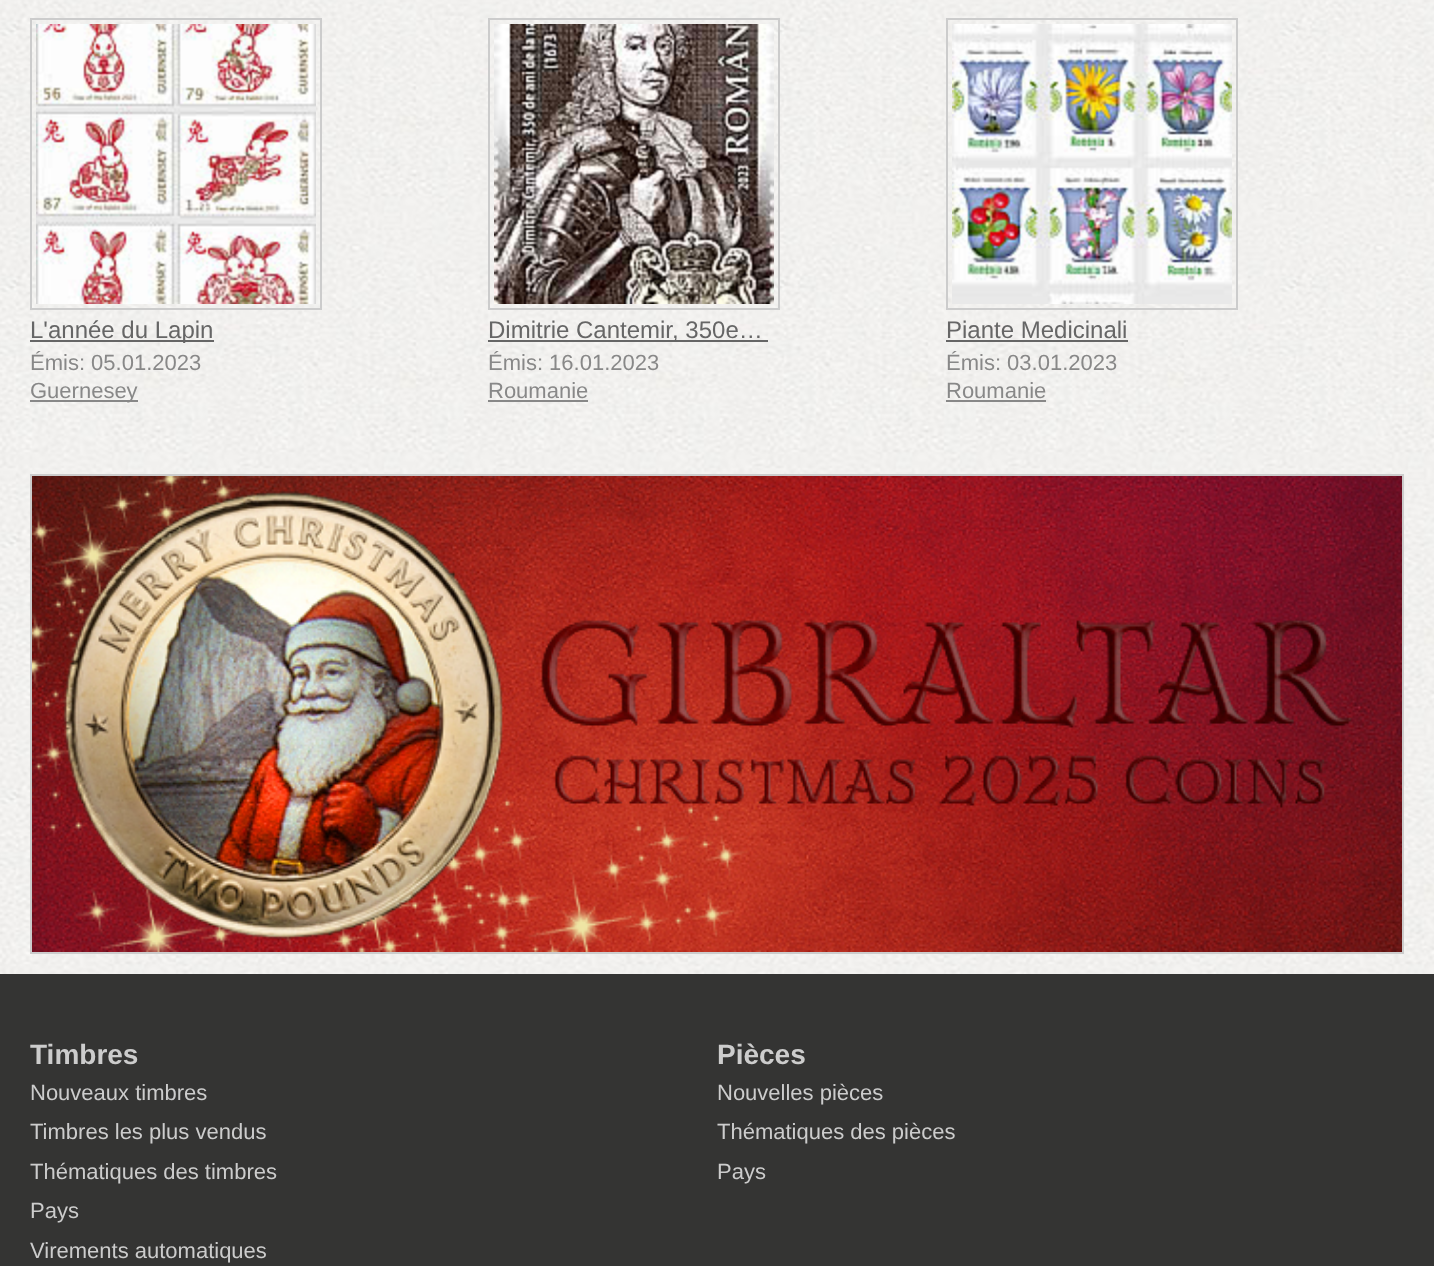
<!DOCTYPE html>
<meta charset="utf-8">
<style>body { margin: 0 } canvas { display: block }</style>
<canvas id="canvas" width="1434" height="1266"></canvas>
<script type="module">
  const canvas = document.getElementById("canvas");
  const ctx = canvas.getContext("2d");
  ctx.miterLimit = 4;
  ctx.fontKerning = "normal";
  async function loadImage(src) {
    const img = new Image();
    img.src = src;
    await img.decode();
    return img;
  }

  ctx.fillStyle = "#ffffff";
  ctx.fillRect(0, 0, 1434, 1266);
  ctx.drawImage(await loadImage("img1.png"), 0, 0, 1434, 974);
  ctx.strokeStyle = "#cccccc";
  ctx.lineWidth = 2;
  ctx.strokeRect(31, 19, 290, 290);
  ctx.drawImage(await loadImage("img2.png"), 36, 24, 280, 280);
  ctx.fillStyle = "#666666";
  ctx.fillRect(30, 340, 184, 2);
  ctx.font = "24px Liberation Sans";
  ctx.fillText("L'année du Lapin", 30, 338);
  ctx.font = "22px Liberation Sans";
  ctx.fillStyle = "#888888";
  ctx.fillText("Émis: 05.01.2023", 30, 370);
  ctx.fillRect(30, 400, 108, 2);
  ctx.fillText("Guernesey", 30, 398);
  ctx.strokeRect(489, 19, 290, 290);
  ctx.drawImage(await loadImage("img3.png"), 494, 24, 280, 280);
  ctx.fillStyle = "#666666";
  ctx.fillRect(488, 340, 280, 2);
  ctx.font = "24px Liberation Sans";
  ctx.fillText("Dimitrie Cantemir, 350e…", 488, 338);
  ctx.font = "22px Liberation Sans";
  ctx.fillStyle = "#888888";
  ctx.fillText("Émis: 16.01.2023", 488, 370);
  ctx.fillText("Roumanie", 488, 398);
  ctx.fillRect(488, 400, 100, 2);
  ctx.strokeRect(947, 19, 290, 290);
  ctx.drawImage(await loadImage("img4.png"), 952, 24, 280, 280);
  ctx.font = "24px Liberation Sans";
  ctx.fillStyle = "#666666";
  ctx.fillText("Piante Medicinali", 946, 338);
  ctx.fillRect(946, 340, 182, 2);
  ctx.font = "22px Liberation Sans";
  ctx.fillStyle = "#888888";
  ctx.fillText("Émis: 03.01.2023", 946, 370);
  ctx.fillText("Roumanie", 946, 398);
  ctx.fillRect(946, 400, 100, 2);
  ctx.strokeRect(31, 475, 1372, 478);
  ctx.drawImage(await loadImage("img5.png"), 32, 476, 1370, 476);
  ctx.fillStyle = "#343433";
  ctx.fillRect(0, 974, 1434, 292);
  ctx.font = "bold 28px Liberation Sans";
  ctx.fillStyle = "#cccccc";
  ctx.fillText("Timbres", 30, 1064);
  ctx.font = "22px Liberation Sans";
  ctx.fillText("Nouveaux timbres", 30, 1100);
  ctx.fillText("Timbres les plus vendus", 30, 1139);
  ctx.fillText("Thématiques des timbres", 30, 1179);
  ctx.fillText("Pays", 30, 1218);
  ctx.fillText("Virements automatiques", 30, 1258);
  ctx.font = "bold 28px Liberation Sans";
  ctx.fillText("Pièces", 717, 1064);
  ctx.font = "22px Liberation Sans";
  ctx.fillText("Nouvelles pièces", 717, 1100);
  ctx.fillText("Thématiques des pièces", 717, 1139);
  ctx.fillText("Pays", 717, 1179);
</script>
